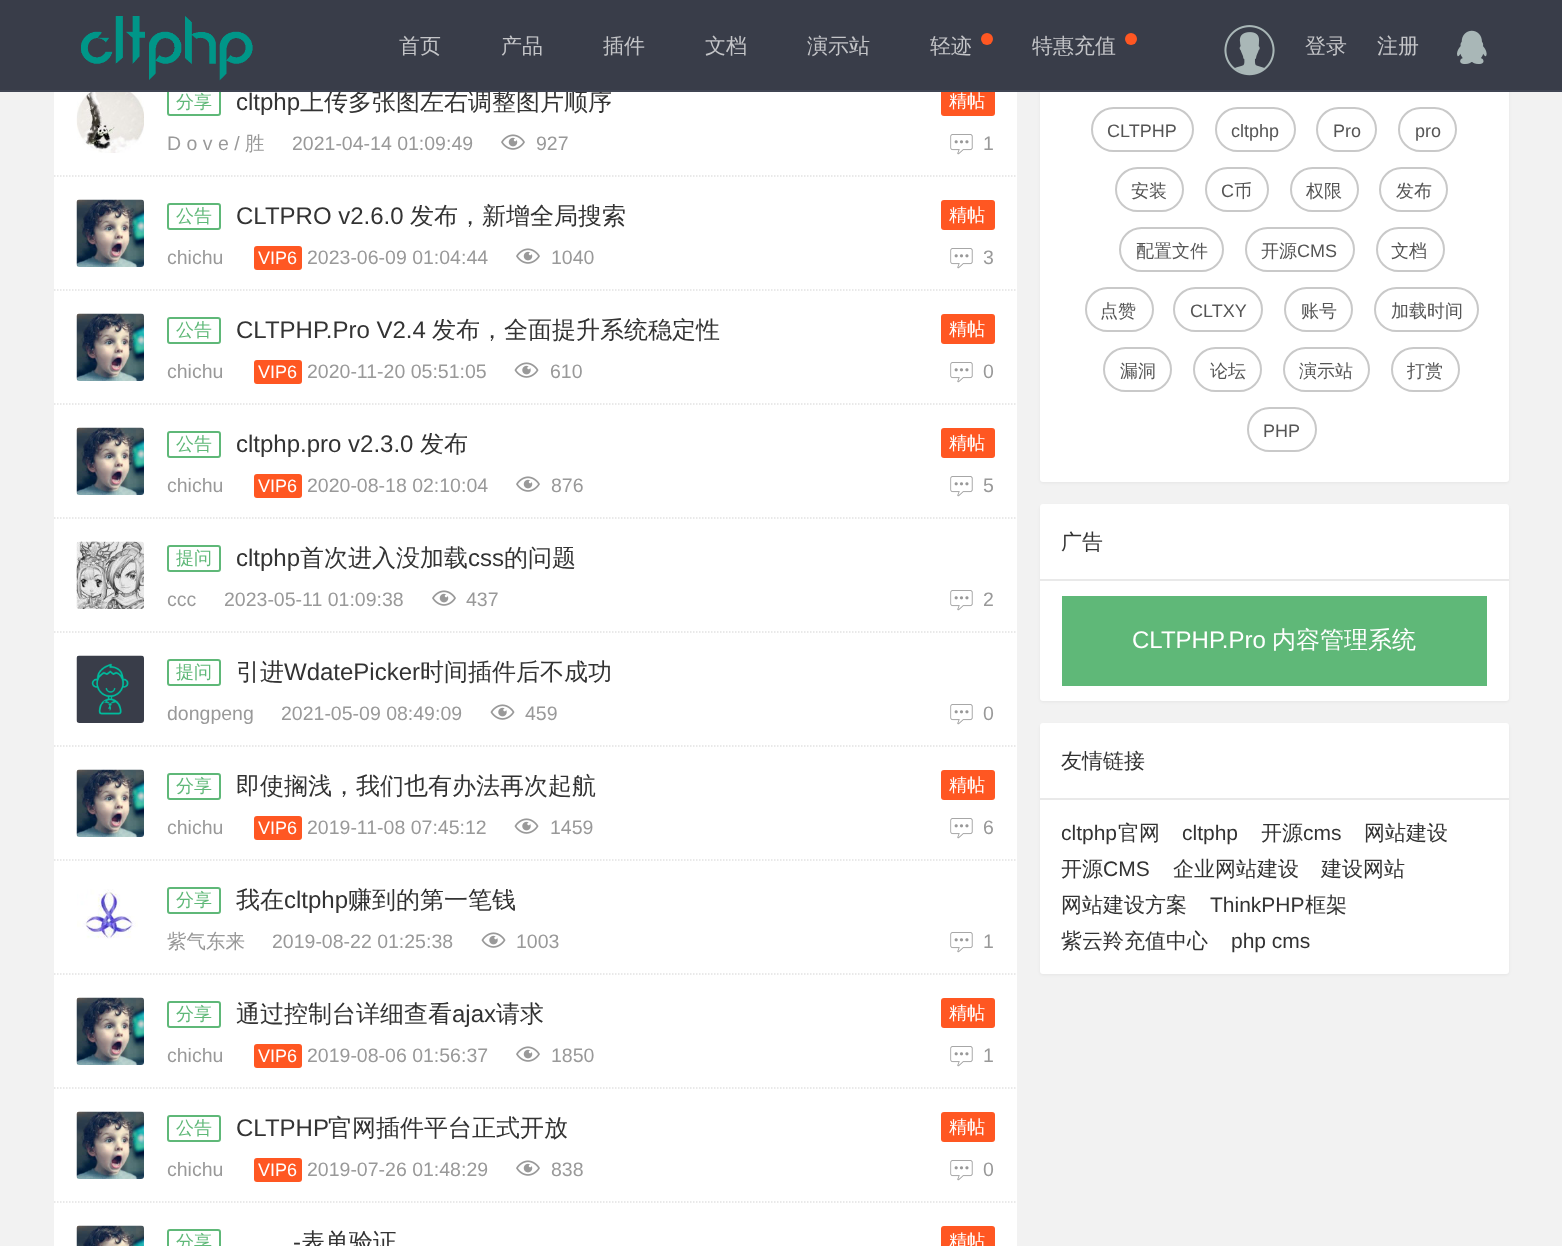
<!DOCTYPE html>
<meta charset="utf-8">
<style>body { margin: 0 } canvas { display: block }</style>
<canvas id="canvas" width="1562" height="1246"></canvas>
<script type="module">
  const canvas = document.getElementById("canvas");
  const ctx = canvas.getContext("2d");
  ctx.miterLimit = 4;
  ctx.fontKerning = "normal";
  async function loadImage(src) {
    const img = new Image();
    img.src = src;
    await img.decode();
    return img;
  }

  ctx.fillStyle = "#f2f2f2";
  ctx.fillRect(0, 0, 1562, 1246);
  ctx.fillStyle = "#ffffff";
  ctx.fillRect(54, 92, 963, 1154);
  ctx.beginPath();
  ctx.roundRect(168, 90, 52, 25, 2);
  ctx.strokeStyle = "#5fb878";
  ctx.lineWidth = 2;
  ctx.stroke();
  ctx.font = "500 24px WenQuanYi Zen Hei";
  ctx.fillStyle = "#333333";
  ctx.fillText("上传多张图左右调整图片顺序", 300, 110);
  ctx.fillStyle = "#ff5722";
  ctx.beginPath();
  ctx.roundRect(941, 86, 54, 30, 3);
  ctx.fill();
  ctx.fillStyle = "rgba(0, 0, 0, 0.05)";
  ctx.filter = "blur(1.5px)";
  ctx.beginPath();
  ctx.roundRect(1040, 9, 469, 474, 3);
  ctx.fill();
  ctx.filter = "none";
  ctx.fillStyle = "#ffffff";
  ctx.beginPath();
  ctx.roundRect(1040, 8, 469, 474, 3);
  ctx.fill();
  ctx.fillStyle = "#393d49";
  ctx.fillRect(0, 0, 1562, 90);
  ctx.fillStyle = "#404553";
  ctx.fillRect(0, 90, 1562, 2);
  ctx.drawImage(await loadImage("img1.png"), 81, 16, 172, 65);
  ctx.font = "500 21px WenQuanYi Zen Hei";
  ctx.fillStyle = "#c4c5c8";
  ctx.fillText("首页", 399, 53);
  ctx.fillText("产品", 501, 53);
  ctx.fillText("插件", 603, 53);
  ctx.fillText("文档", 705, 53);
  ctx.fillText("演示站", 807, 53);
  ctx.fillText("轻迹", 930, 53);
  ctx.fillStyle = "#ff5722";
  ctx.beginPath();
  ctx.arc(987, 39, 6, 0, Math.PI * 2);
  ctx.fill();
  ctx.fillStyle = "#c4c5c8";
  ctx.fillText("特惠充值", 1032, 53);
  ctx.fillStyle = "#ff5722";
  ctx.beginPath();
  ctx.arc(1131, 39, 6, 0, Math.PI * 2);
  ctx.fill();
  ctx.drawImage(await loadImage("img2.png"), 1224, 25, 51, 51);
  ctx.fillStyle = "#c4c5c8";
  ctx.fillText("登录", 1305, 53);
  ctx.fillText("注册", 1377, 53);
  ctx.drawImage(await loadImage("img3.png"), 1457, 30, 30, 34);
  ctx.beginPath();
  ctx.moveTo(54, 176);
  ctx.lineTo(1017, 176);
  ctx.strokeStyle = "#e2e2e2";
  ctx.lineWidth = 1.5;
  ctx.setLineDash([1.5, 1.5]);
  ctx.stroke();
  ctx.drawImage(await loadImage("img4.png"), 76, 92, 68, 61);
  ctx.font = "500 18px WenQuanYi Zen Hei";
  ctx.fillStyle = "#5fb878";
  ctx.fillText("分享", 176, 108);
  ctx.font = "24px Liberation Sans";
  ctx.fillStyle = "#333333";
  ctx.fillText("cltphp", 236, 110);
  ctx.font = "500 18px WenQuanYi Zen Hei";
  ctx.fillStyle = "#ffffff";
  ctx.fillText("精帖", 949, 107);
  ctx.font = "19.5px Liberation Sans";
  ctx.fillStyle = "#999999";
  ctx.fillText("D o v e /", 167, 150);
  ctx.font = "500 19.5px WenQuanYi Zen Hei";
  ctx.fillText("胜", 245, 150);
  ctx.font = "19.5px Liberation Sans";
  ctx.fillText("2021-04-14 01:09:49", 292, 150);
  ctx.drawImage(await loadImage("img5.png"), 501, 134, 24, 16);
  ctx.fillText("927", 536, 150);
  ctx.drawImage(await loadImage("img6.png"), 950, 134, 23, 21);
  ctx.fillText("1", 983, 150);
  ctx.beginPath();
  ctx.moveTo(54, 290);
  ctx.lineTo(1017, 290);
  ctx.stroke();
  ctx.drawImage(await loadImage("img7.png"), 76, 199, 68, 68);
  ctx.beginPath();
  ctx.roundRect(168, 204, 52, 25, 2);
  ctx.strokeStyle = "#5fb878";
  ctx.lineWidth = 2;
  ctx.setLineDash([]);
  ctx.stroke();
  ctx.font = "500 18px WenQuanYi Zen Hei";
  ctx.fillStyle = "#5fb878";
  ctx.fillText("公告", 176, 222);
  ctx.font = "24px Liberation Sans";
  ctx.fillStyle = "#333333";
  ctx.fillText("CLTPRO v2.6.0", 236, 224);
  ctx.font = "500 24px WenQuanYi Zen Hei";
  ctx.fillText("发布，新增全局搜索", 410, 224);
  ctx.fillStyle = "#ff5722";
  ctx.beginPath();
  ctx.roundRect(941, 200, 54, 30, 3);
  ctx.fill();
  ctx.font = "500 18px WenQuanYi Zen Hei";
  ctx.fillStyle = "#ffffff";
  ctx.fillText("精帖", 949, 221);
  ctx.font = "19.5px Liberation Sans";
  ctx.fillStyle = "#999999";
  ctx.fillText("chichu", 167, 264);
  ctx.fillStyle = "#ff5722";
  ctx.beginPath();
  ctx.roundRect(254, 246, 48, 24, 3);
  ctx.fill();
  ctx.font = "18px Liberation Sans";
  ctx.fillStyle = "#ffffff";
  ctx.fillText("VIP6", 258, 264);
  ctx.font = "19.5px Liberation Sans";
  ctx.fillStyle = "#999999";
  ctx.fillText("2023-06-09 01:04:44", 307, 264);
  ctx.drawImage(await loadImage("img5.png"), 516, 248, 24, 16);
  ctx.fillText("1040", 551, 264);
  ctx.drawImage(await loadImage("img6.png"), 950, 248, 23, 21);
  ctx.fillText("3", 983, 264);
  ctx.beginPath();
  ctx.moveTo(54, 404);
  ctx.lineTo(1017, 404);
  ctx.strokeStyle = "#e2e2e2";
  ctx.lineWidth = 1.5;
  ctx.setLineDash([1.5, 1.5]);
  ctx.stroke();
  ctx.drawImage(await loadImage("img8.png"), 76, 313, 68, 68);
  ctx.beginPath();
  ctx.roundRect(168, 318, 52, 25, 2);
  ctx.strokeStyle = "#5fb878";
  ctx.lineWidth = 2;
  ctx.setLineDash([]);
  ctx.stroke();
  ctx.font = "500 18px WenQuanYi Zen Hei";
  ctx.fillStyle = "#5fb878";
  ctx.fillText("公告", 176, 336);
  ctx.font = "24px Liberation Sans";
  ctx.fillStyle = "#333333";
  ctx.fillText("CLTPHP.Pro V2.4", 236, 338);
  ctx.font = "500 24px WenQuanYi Zen Hei";
  ctx.fillText("发布，全面提升系统稳定性", 432, 338);
  ctx.fillStyle = "#ff5722";
  ctx.beginPath();
  ctx.roundRect(941, 314, 54, 30, 3);
  ctx.fill();
  ctx.font = "500 18px WenQuanYi Zen Hei";
  ctx.fillStyle = "#ffffff";
  ctx.fillText("精帖", 949, 335);
  ctx.font = "19.5px Liberation Sans";
  ctx.fillStyle = "#999999";
  ctx.fillText("chichu", 167, 378);
  ctx.fillStyle = "#ff5722";
  ctx.beginPath();
  ctx.roundRect(254, 360, 48, 24, 3);
  ctx.fill();
  ctx.font = "18px Liberation Sans";
  ctx.fillStyle = "#ffffff";
  ctx.fillText("VIP6", 258, 378);
  ctx.font = "19.5px Liberation Sans";
  ctx.fillStyle = "#999999";
  ctx.fillText("2020-11-20 05:51:05", 307, 378);
  ctx.drawImage(await loadImage("img9.png"), 514, 362, 25, 16);
  ctx.fillText("610", 550, 378);
  ctx.drawImage(await loadImage("img6.png"), 950, 362, 23, 21);
  ctx.fillText("0", 983, 378);
  ctx.beginPath();
  ctx.moveTo(54, 518);
  ctx.lineTo(1017, 518);
  ctx.strokeStyle = "#e2e2e2";
  ctx.lineWidth = 1.5;
  ctx.setLineDash([1.5, 1.5]);
  ctx.stroke();
  ctx.drawImage(await loadImage("img8.png"), 76, 427, 68, 68);
  ctx.beginPath();
  ctx.roundRect(168, 432, 52, 25, 2);
  ctx.strokeStyle = "#5fb878";
  ctx.lineWidth = 2;
  ctx.setLineDash([]);
  ctx.stroke();
  ctx.font = "500 18px WenQuanYi Zen Hei";
  ctx.fillStyle = "#5fb878";
  ctx.fillText("公告", 176, 450);
  ctx.font = "24px Liberation Sans";
  ctx.fillStyle = "#333333";
  ctx.fillText("cltphp.pro v2.3.0", 236, 452);
  ctx.font = "500 24px WenQuanYi Zen Hei";
  ctx.fillText("发布", 420, 452);
  ctx.fillStyle = "#ff5722";
  ctx.beginPath();
  ctx.roundRect(941, 428, 54, 30, 3);
  ctx.fill();
  ctx.font = "500 18px WenQuanYi Zen Hei";
  ctx.fillStyle = "#ffffff";
  ctx.fillText("精帖", 949, 449);
  ctx.font = "19.5px Liberation Sans";
  ctx.fillStyle = "#999999";
  ctx.fillText("chichu", 167, 492);
  ctx.fillStyle = "#ff5722";
  ctx.beginPath();
  ctx.roundRect(254, 474, 48, 24, 3);
  ctx.fill();
  ctx.font = "18px Liberation Sans";
  ctx.fillStyle = "#ffffff";
  ctx.fillText("VIP6", 258, 492);
  ctx.font = "19.5px Liberation Sans";
  ctx.fillStyle = "#999999";
  ctx.fillText("2020-08-18 02:10:04", 307, 492);
  ctx.drawImage(await loadImage("img5.png"), 516, 476, 24, 16);
  ctx.fillText("876", 551, 492);
  ctx.drawImage(await loadImage("img6.png"), 950, 476, 23, 21);
  ctx.fillText("5", 983, 492);
  ctx.beginPath();
  ctx.moveTo(54, 632);
  ctx.lineTo(1017, 632);
  ctx.strokeStyle = "#e2e2e2";
  ctx.lineWidth = 1.5;
  ctx.setLineDash([1.5, 1.5]);
  ctx.stroke();
  ctx.drawImage(await loadImage("img10.png"), 76, 541, 68, 68);
  ctx.beginPath();
  ctx.roundRect(168, 546, 52, 25, 2);
  ctx.strokeStyle = "#5fb878";
  ctx.lineWidth = 2;
  ctx.setLineDash([]);
  ctx.stroke();
  ctx.font = "500 18px WenQuanYi Zen Hei";
  ctx.fillStyle = "#5fb878";
  ctx.fillText("提问", 176, 564);
  ctx.font = "24px Liberation Sans";
  ctx.fillStyle = "#333333";
  ctx.fillText("cltphp", 236, 566);
  ctx.font = "500 24px WenQuanYi Zen Hei";
  ctx.fillText("首次进入没加载", 300, 566);
  ctx.font = "24px Liberation Sans";
  ctx.fillText("css", 468, 566);
  ctx.font = "500 24px WenQuanYi Zen Hei";
  ctx.fillText("的问题", 504, 566);
  ctx.font = "19.5px Liberation Sans";
  ctx.fillStyle = "#999999";
  ctx.fillText("ccc", 167, 606);
  ctx.fillText("2023-05-11 01:09:38", 224, 606);
  ctx.drawImage(await loadImage("img5.png"), 432, 590, 24, 16);
  ctx.fillText("437", 466, 606);
  ctx.drawImage(await loadImage("img6.png"), 950, 590, 23, 21);
  ctx.fillText("2", 983, 606);
  ctx.beginPath();
  ctx.moveTo(54, 746);
  ctx.lineTo(1017, 746);
  ctx.strokeStyle = "#e2e2e2";
  ctx.lineWidth = 1.5;
  ctx.setLineDash([1.5, 1.5]);
  ctx.stroke();
  ctx.drawImage(await loadImage("img11.png"), 76, 655, 68, 68);
  ctx.beginPath();
  ctx.roundRect(168, 660, 52, 25, 2);
  ctx.strokeStyle = "#5fb878";
  ctx.lineWidth = 2;
  ctx.setLineDash([]);
  ctx.stroke();
  ctx.font = "500 18px WenQuanYi Zen Hei";
  ctx.fillStyle = "#5fb878";
  ctx.fillText("提问", 176, 678);
  ctx.font = "500 24px WenQuanYi Zen Hei";
  ctx.fillStyle = "#333333";
  ctx.fillText("引进", 236, 680);
  ctx.font = "24px Liberation Sans";
  ctx.fillText("WdatePicker", 284, 680);
  ctx.font = "500 24px WenQuanYi Zen Hei";
  ctx.fillText("时间插件后不成功", 420, 680);
  ctx.font = "19.5px Liberation Sans";
  ctx.fillStyle = "#999999";
  ctx.fillText("dongpeng", 167, 720);
  ctx.fillText("2021-05-09 08:49:09", 281, 720);
  ctx.drawImage(await loadImage("img9.png"), 490, 704, 25, 16);
  ctx.fillText("459", 525, 720);
  ctx.drawImage(await loadImage("img6.png"), 950, 704, 23, 21);
  ctx.fillText("0", 983, 720);
  ctx.beginPath();
  ctx.moveTo(54, 860);
  ctx.lineTo(1017, 860);
  ctx.strokeStyle = "#e2e2e2";
  ctx.lineWidth = 1.5;
  ctx.setLineDash([1.5, 1.5]);
  ctx.stroke();
  ctx.drawImage(await loadImage("img8.png"), 76, 769, 68, 68);
  ctx.beginPath();
  ctx.roundRect(168, 774, 52, 25, 2);
  ctx.strokeStyle = "#5fb878";
  ctx.lineWidth = 2;
  ctx.setLineDash([]);
  ctx.stroke();
  ctx.font = "500 18px WenQuanYi Zen Hei";
  ctx.fillStyle = "#5fb878";
  ctx.fillText("分享", 176, 792);
  ctx.font = "500 24px WenQuanYi Zen Hei";
  ctx.fillStyle = "#333333";
  ctx.fillText("即使搁浅，我们也有办法再次起航", 236, 794);
  ctx.fillStyle = "#ff5722";
  ctx.beginPath();
  ctx.roundRect(941, 770, 54, 30, 3);
  ctx.fill();
  ctx.font = "500 18px WenQuanYi Zen Hei";
  ctx.fillStyle = "#ffffff";
  ctx.fillText("精帖", 949, 791);
  ctx.font = "19.5px Liberation Sans";
  ctx.fillStyle = "#999999";
  ctx.fillText("chichu", 167, 834);
  ctx.fillStyle = "#ff5722";
  ctx.beginPath();
  ctx.roundRect(254, 816, 48, 24, 3);
  ctx.fill();
  ctx.font = "18px Liberation Sans";
  ctx.fillStyle = "#ffffff";
  ctx.fillText("VIP6", 258, 834);
  ctx.font = "19.5px Liberation Sans";
  ctx.fillStyle = "#999999";
  ctx.fillText("2019-11-08 07:45:12", 307, 834);
  ctx.drawImage(await loadImage("img9.png"), 514, 818, 25, 16);
  ctx.fillText("1459", 550, 834);
  ctx.drawImage(await loadImage("img6.png"), 950, 818, 23, 21);
  ctx.fillText("6", 983, 834);
  ctx.beginPath();
  ctx.moveTo(54, 974);
  ctx.lineTo(1017, 974);
  ctx.strokeStyle = "#e2e2e2";
  ctx.lineWidth = 1.5;
  ctx.setLineDash([1.5, 1.5]);
  ctx.stroke();
  ctx.drawImage(await loadImage("img12.png"), 77, 889, 61, 50);
  ctx.beginPath();
  ctx.roundRect(168, 888, 52, 25, 2);
  ctx.strokeStyle = "#5fb878";
  ctx.lineWidth = 2;
  ctx.setLineDash([]);
  ctx.stroke();
  ctx.font = "500 18px WenQuanYi Zen Hei";
  ctx.fillStyle = "#5fb878";
  ctx.fillText("分享", 176, 906);
  ctx.font = "500 24px WenQuanYi Zen Hei";
  ctx.fillStyle = "#333333";
  ctx.fillText("我在", 236, 908);
  ctx.font = "24px Liberation Sans";
  ctx.fillText("cltphp", 284, 908);
  ctx.font = "500 24px WenQuanYi Zen Hei";
  ctx.fillText("赚到的第一笔钱", 348, 908);
  ctx.font = "500 19.5px WenQuanYi Zen Hei";
  ctx.fillStyle = "#999999";
  ctx.fillText("紫气东来", 167, 948);
  ctx.font = "19.5px Liberation Sans";
  ctx.fillText("2019-08-22 01:25:38", 272, 948);
  ctx.drawImage(await loadImage("img9.png"), 481, 932, 25, 16);
  ctx.fillText("1003", 516, 948);
  ctx.drawImage(await loadImage("img6.png"), 950, 932, 23, 21);
  ctx.fillText("1", 983, 948);
  ctx.beginPath();
  ctx.moveTo(54, 1088);
  ctx.lineTo(1017, 1088);
  ctx.strokeStyle = "#e2e2e2";
  ctx.lineWidth = 1.5;
  ctx.setLineDash([1.5, 1.5]);
  ctx.stroke();
  ctx.drawImage(await loadImage("img8.png"), 76, 997, 68, 68);
  ctx.beginPath();
  ctx.roundRect(168, 1002, 52, 25, 2);
  ctx.strokeStyle = "#5fb878";
  ctx.lineWidth = 2;
  ctx.setLineDash([]);
  ctx.stroke();
  ctx.font = "500 18px WenQuanYi Zen Hei";
  ctx.fillStyle = "#5fb878";
  ctx.fillText("分享", 176, 1020);
  ctx.font = "500 24px WenQuanYi Zen Hei";
  ctx.fillStyle = "#333333";
  ctx.fillText("通过控制台详细查看", 236, 1022);
  ctx.font = "24px Liberation Sans";
  ctx.fillText("ajax", 452, 1022);
  ctx.font = "500 24px WenQuanYi Zen Hei";
  ctx.fillText("请求", 496, 1022);
  ctx.fillStyle = "#ff5722";
  ctx.beginPath();
  ctx.roundRect(941, 998, 54, 30, 3);
  ctx.fill();
  ctx.font = "500 18px WenQuanYi Zen Hei";
  ctx.fillStyle = "#ffffff";
  ctx.fillText("精帖", 949, 1019);
  ctx.font = "19.5px Liberation Sans";
  ctx.fillStyle = "#999999";
  ctx.fillText("chichu", 167, 1062);
  ctx.fillStyle = "#ff5722";
  ctx.beginPath();
  ctx.roundRect(254, 1044, 48, 24, 3);
  ctx.fill();
  ctx.font = "18px Liberation Sans";
  ctx.fillStyle = "#ffffff";
  ctx.fillText("VIP6", 258, 1062);
  ctx.font = "19.5px Liberation Sans";
  ctx.fillStyle = "#999999";
  ctx.fillText("2019-08-06 01:56:37", 307, 1062);
  ctx.drawImage(await loadImage("img5.png"), 516, 1046, 24, 16);
  ctx.fillText("1850", 551, 1062);
  ctx.drawImage(await loadImage("img6.png"), 950, 1046, 23, 21);
  ctx.fillText("1", 983, 1062);
  ctx.beginPath();
  ctx.moveTo(54, 1202);
  ctx.lineTo(1017, 1202);
  ctx.strokeStyle = "#e2e2e2";
  ctx.lineWidth = 1.5;
  ctx.setLineDash([1.5, 1.5]);
  ctx.stroke();
  ctx.drawImage(await loadImage("img8.png"), 76, 1111, 68, 68);
  ctx.beginPath();
  ctx.roundRect(168, 1116, 52, 25, 2);
  ctx.strokeStyle = "#5fb878";
  ctx.lineWidth = 2;
  ctx.setLineDash([]);
  ctx.stroke();
  ctx.font = "500 18px WenQuanYi Zen Hei";
  ctx.fillStyle = "#5fb878";
  ctx.fillText("公告", 176, 1134);
  ctx.font = "24px Liberation Sans";
  ctx.fillStyle = "#333333";
  ctx.fillText("CLTPHP", 236, 1136);
  ctx.font = "500 24px WenQuanYi Zen Hei";
  ctx.fillText("官网插件平台正式开放", 328, 1136);
  ctx.fillStyle = "#ff5722";
  ctx.beginPath();
  ctx.roundRect(941, 1112, 54, 30, 3);
  ctx.fill();
  ctx.font = "500 18px WenQuanYi Zen Hei";
  ctx.fillStyle = "#ffffff";
  ctx.fillText("精帖", 949, 1133);
  ctx.font = "19.5px Liberation Sans";
  ctx.fillStyle = "#999999";
  ctx.fillText("chichu", 167, 1176);
  ctx.fillStyle = "#ff5722";
  ctx.beginPath();
  ctx.roundRect(254, 1158, 48, 24, 3);
  ctx.fill();
  ctx.font = "18px Liberation Sans";
  ctx.fillStyle = "#ffffff";
  ctx.fillText("VIP6", 258, 1176);
  ctx.font = "19.5px Liberation Sans";
  ctx.fillStyle = "#999999";
  ctx.fillText("2019-07-26 01:48:29", 307, 1176);
  ctx.drawImage(await loadImage("img5.png"), 516, 1160, 24, 16);
  ctx.fillText("838", 551, 1176);
  ctx.drawImage(await loadImage("img6.png"), 950, 1160, 23, 21);
  ctx.fillText("0", 983, 1176);
  ctx.drawImage(await loadImage("img13.png"), 76, 1225, 68, 21);
  ctx.beginPath();
  ctx.roundRect(168, 1230, 52, 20, 2);
  ctx.stroke();
  ctx.font = "500 18px WenQuanYi Zen Hei";
  ctx.fillStyle = "#5fb878";
  ctx.fillText("分享", 176, 1248);
  ctx.font = "24px Liberation Sans";
  ctx.fillStyle = "#333333";
  ctx.fillText("-", 293, 1250);
  ctx.font = "500 24px WenQuanYi Zen Hei";
  ctx.fillText("表单验证", 301, 1250);
  ctx.fillStyle = "#ff5722";
  ctx.beginPath();
  ctx.roundRect(941, 1226, 54, 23, 3);
  ctx.fill();
  ctx.font = "500 18px WenQuanYi Zen Hei";
  ctx.fillStyle = "#ffffff";
  ctx.fillText("精帖", 949, 1247);
  ctx.beginPath();
  ctx.roundRect(1092, 108, 101, 43, 21.5);
  ctx.strokeStyle = "#c9c9c9";
  ctx.stroke();
  ctx.font = "18px Liberation Sans";
  ctx.fillStyle = "#555555";
  ctx.fillText("CLTPHP", 1107, 137);
  ctx.beginPath();
  ctx.roundRect(1216, 108, 79, 43, 21.5);
  ctx.stroke();
  ctx.fillText("cltphp", 1231, 137);
  ctx.beginPath();
  ctx.roundRect(1317, 108, 59, 43, 21.5);
  ctx.stroke();
  ctx.fillText("Pro", 1333, 137);
  ctx.beginPath();
  ctx.roundRect(1399, 108, 57, 43, 21.5);
  ctx.stroke();
  ctx.fillText("pro", 1415, 137);
  ctx.beginPath();
  ctx.roundRect(1116, 168, 67, 43, 21.5);
  ctx.stroke();
  ctx.font = "500 18px WenQuanYi Zen Hei";
  ctx.fillText("安装", 1131, 197);
  ctx.beginPath();
  ctx.roundRect(1206, 168, 62, 43, 21.5);
  ctx.stroke();
  ctx.font = "18px Liberation Sans";
  ctx.fillText("C", 1221, 197);
  ctx.font = "500 18px WenQuanYi Zen Hei";
  ctx.fillText("币", 1234, 197);
  ctx.beginPath();
  ctx.roundRect(1291, 168, 67, 43, 21.5);
  ctx.stroke();
  ctx.fillText("权限", 1306, 197);
  ctx.beginPath();
  ctx.roundRect(1380, 168, 67, 43, 21.5);
  ctx.stroke();
  ctx.fillText("发布", 1396, 197);
  ctx.beginPath();
  ctx.roundRect(1120, 228, 103, 43, 21.5);
  ctx.stroke();
  ctx.fillText("配置文件", 1136, 257);
  ctx.beginPath();
  ctx.roundRect(1246, 228, 108, 43, 21.5);
  ctx.stroke();
  ctx.fillText("开源", 1261, 257);
  ctx.font = "18px Liberation Sans";
  ctx.fillText("CMS", 1297, 257);
  ctx.beginPath();
  ctx.roundRect(1377, 228, 67, 43, 21.5);
  ctx.stroke();
  ctx.font = "500 18px WenQuanYi Zen Hei";
  ctx.fillText("文档", 1391, 257);
  ctx.beginPath();
  ctx.roundRect(1086, 288, 67, 43, 21.5);
  ctx.stroke();
  ctx.fillText("点赞", 1100, 317);
  ctx.beginPath();
  ctx.roundRect(1174, 288, 88, 43, 21.5);
  ctx.stroke();
  ctx.font = "18px Liberation Sans";
  ctx.fillText("CLTXY", 1190, 317);
  ctx.beginPath();
  ctx.roundRect(1285, 288, 67, 43, 21.5);
  ctx.stroke();
  ctx.font = "500 18px WenQuanYi Zen Hei";
  ctx.fillText("账号", 1301, 317);
  ctx.beginPath();
  ctx.roundRect(1375, 288, 103, 43, 21.5);
  ctx.stroke();
  ctx.fillText("加载时间", 1391, 317);
  ctx.beginPath();
  ctx.roundRect(1104, 348, 67, 43, 21.5);
  ctx.stroke();
  ctx.fillText("漏洞", 1120, 377);
  ctx.beginPath();
  ctx.roundRect(1194, 348, 67, 43, 21.5);
  ctx.stroke();
  ctx.fillText("论坛", 1210, 377);
  ctx.beginPath();
  ctx.roundRect(1284, 348, 85, 43, 21.5);
  ctx.stroke();
  ctx.fillText("演示站", 1299, 377);
  ctx.beginPath();
  ctx.roundRect(1392, 348, 67, 43, 21.5);
  ctx.stroke();
  ctx.fillText("打赏", 1407, 377);
  ctx.beginPath();
  ctx.roundRect(1248, 408, 68, 43, 21.5);
  ctx.stroke();
  ctx.font = "18px Liberation Sans";
  ctx.fillText("PHP", 1263, 437);
  ctx.fillStyle = "rgba(0, 0, 0, 0.05)";
  ctx.filter = "blur(1.5px)";
  ctx.beginPath();
  ctx.roundRect(1040, 506, 469, 196, 3);
  ctx.fill();
  ctx.filter = "none";
  ctx.fillStyle = "#ffffff";
  ctx.beginPath();
  ctx.roundRect(1040, 504, 469, 197, 3);
  ctx.fill();
  ctx.fillStyle = "#e9e9e9";
  ctx.fillRect(1040, 579, 469, 2);
  ctx.font = "500 21px WenQuanYi Zen Hei";
  ctx.fillStyle = "#333333";
  ctx.fillText("广告", 1061, 549);
  ctx.fillStyle = "#5fb878";
  ctx.fillRect(1062, 596, 425, 90);
  ctx.font = "24px Liberation Sans";
  ctx.fillStyle = "#ffffff";
  ctx.fillText("CLTPHP.Pro", 1132, 648);
  ctx.font = "500 24px WenQuanYi Zen Hei";
  ctx.fillText("内容管理系统", 1272, 648);
  ctx.fillStyle = "rgba(0, 0, 0, 0.05)";
  ctx.filter = "blur(1.5px)";
  ctx.beginPath();
  ctx.roundRect(1040, 725, 469, 250, 3);
  ctx.fill();
  ctx.filter = "none";
  ctx.fillStyle = "#ffffff";
  ctx.beginPath();
  ctx.roundRect(1040, 723, 469, 251, 3);
  ctx.fill();
  ctx.fillStyle = "#e9e9e9";
  ctx.fillRect(1040, 798, 469, 2);
  ctx.font = "500 21px WenQuanYi Zen Hei";
  ctx.fillStyle = "#333333";
  ctx.fillText("友情链接", 1061, 768);
  ctx.font = "21px Liberation Sans";
  ctx.fillText("cltphp", 1061, 840);
  ctx.font = "500 21px WenQuanYi Zen Hei";
  ctx.fillText("官网", 1118, 840);
  ctx.font = "21px Liberation Sans";
  ctx.fillText("cltphp", 1182, 840);
  ctx.font = "500 21px WenQuanYi Zen Hei";
  ctx.fillText("开源", 1261, 840);
  ctx.font = "21px Liberation Sans";
  ctx.fillText("cms", 1303, 840);
  ctx.font = "500 21px WenQuanYi Zen Hei";
  ctx.fillText("网站建设", 1364, 840);
  ctx.fillText("开源", 1061, 876);
  ctx.font = "21px Liberation Sans";
  ctx.fillText("CMS", 1103, 876);
  ctx.font = "500 21px WenQuanYi Zen Hei";
  ctx.fillText("企业网站建设", 1173, 876);
  ctx.fillText("建设网站", 1321, 876);
  ctx.fillText("网站建设方案", 1061, 912);
  ctx.font = "21px Liberation Sans";
  ctx.fillText("ThinkPHP", 1210, 912);
  ctx.font = "500 21px WenQuanYi Zen Hei";
  ctx.fillText("框架", 1305, 912);
  ctx.fillText("紫云羚充值中心", 1061, 948);
  ctx.font = "21px Liberation Sans";
  ctx.fillText("php cms", 1231, 948);
</script>
